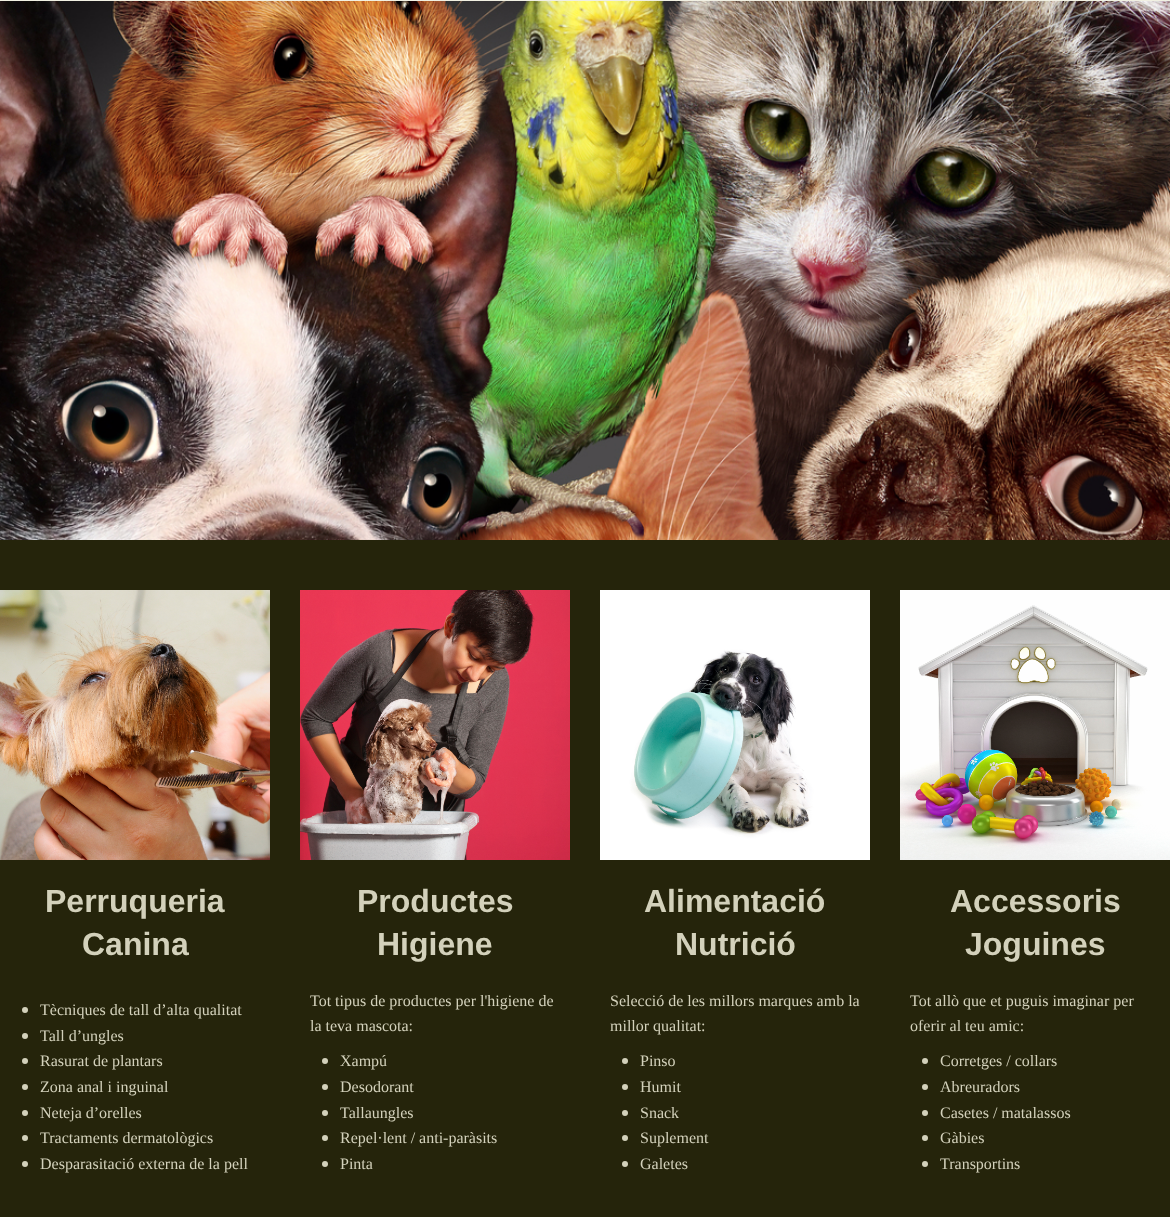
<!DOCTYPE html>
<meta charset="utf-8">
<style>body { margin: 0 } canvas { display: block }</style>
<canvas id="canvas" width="1170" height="1217"></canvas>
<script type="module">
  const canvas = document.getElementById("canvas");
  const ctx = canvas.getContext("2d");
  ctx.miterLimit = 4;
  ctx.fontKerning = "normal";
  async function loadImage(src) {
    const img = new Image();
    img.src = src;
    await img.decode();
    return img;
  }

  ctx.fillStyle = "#f1f0e2";
  ctx.fillRect(0, 0, 1170, 1217);
  ctx.fillStyle = "#25240b";
  ctx.fillRect(0, 540, 1170, 677);
  ctx.drawImage(await loadImage("img1.png"), 0, 1, 1170, 539);
  ctx.drawImage(await loadImage("img2.png"), 0, 590, 270, 270);
  ctx.font = "bold 32px Liberation Sans";
  ctx.fillStyle = "#d3d1bb";
  ctx.fillText("Perruqueria", 45, 912);
  ctx.fillText("Canina", 82, 955);
  ctx.beginPath();
  ctx.arc(25, 1010, 3, 0, Math.PI * 2);
  ctx.fill();
  ctx.font = "16px Liberation Serif";
  ctx.fillText("Tècniques de tall d’alta qualitat", 40, 1015);
  ctx.beginPath();
  ctx.arc(25, 1036, 3, 0, Math.PI * 2);
  ctx.fill();
  ctx.fillText("Tall d’ungles", 40, 1041);
  ctx.beginPath();
  ctx.arc(25, 1061, 3, 0, Math.PI * 2);
  ctx.fill();
  ctx.fillText("Rasurat de plantars", 40, 1066);
  ctx.beginPath();
  ctx.arc(25, 1087, 3, 0, Math.PI * 2);
  ctx.fill();
  ctx.fillText("Zona anal i inguinal", 40, 1092);
  ctx.beginPath();
  ctx.arc(25, 1113, 3, 0, Math.PI * 2);
  ctx.fill();
  ctx.fillText("Neteja d’orelles", 40, 1118);
  ctx.beginPath();
  ctx.arc(25, 1138, 3, 0, Math.PI * 2);
  ctx.fill();
  ctx.fillText("Tractaments dermatològics", 40, 1143);
  ctx.beginPath();
  ctx.arc(25, 1164, 3, 0, Math.PI * 2);
  ctx.fill();
  ctx.fillText("Desparasitació externa de la pell", 40, 1169);
  ctx.drawImage(await loadImage("img3.png"), 300, 590, 270, 270);
  ctx.font = "bold 32px Liberation Sans";
  ctx.fillText("Productes", 357, 912);
  ctx.fillText("Higiene", 377, 955);
  ctx.font = "16px Liberation Serif";
  ctx.fillText("Tot tipus de productes per l'higiene de", 310, 1006);
  ctx.fillText("la teva mascota:", 310, 1031);
  ctx.beginPath();
  ctx.arc(325, 1061, 3, 0, Math.PI * 2);
  ctx.fill();
  ctx.fillText("Xampú", 340, 1066);
  ctx.beginPath();
  ctx.arc(325, 1087, 3, 0, Math.PI * 2);
  ctx.fill();
  ctx.fillText("Desodorant", 340, 1092);
  ctx.beginPath();
  ctx.arc(325, 1113, 3, 0, Math.PI * 2);
  ctx.fill();
  ctx.fillText("Tallaungles", 340, 1118);
  ctx.beginPath();
  ctx.arc(325, 1138, 3, 0, Math.PI * 2);
  ctx.fill();
  ctx.fillText("Repel·lent / anti-paràsits", 340, 1143);
  ctx.beginPath();
  ctx.arc(325, 1164, 3, 0, Math.PI * 2);
  ctx.fill();
  ctx.fillText("Pinta", 340, 1169);
  ctx.drawImage(await loadImage("img4.png"), 600, 590, 270, 270);
  ctx.font = "bold 32px Liberation Sans";
  ctx.fillText("Alimentació", 644, 912);
  ctx.fillText("Nutrició", 675, 955);
  ctx.font = "16px Liberation Serif";
  ctx.fillText("Selecció de les millors marques amb la", 610, 1006);
  ctx.fillText("millor qualitat:", 610, 1031);
  ctx.beginPath();
  ctx.arc(625, 1061, 3, 0, Math.PI * 2);
  ctx.fill();
  ctx.fillText("Pinso", 640, 1066);
  ctx.beginPath();
  ctx.arc(625, 1087, 3, 0, Math.PI * 2);
  ctx.fill();
  ctx.fillText("Humit", 640, 1092);
  ctx.beginPath();
  ctx.arc(625, 1113, 3, 0, Math.PI * 2);
  ctx.fill();
  ctx.fillText("Snack", 640, 1118);
  ctx.beginPath();
  ctx.arc(625, 1138, 3, 0, Math.PI * 2);
  ctx.fill();
  ctx.fillText("Suplement", 640, 1143);
  ctx.beginPath();
  ctx.arc(625, 1164, 3, 0, Math.PI * 2);
  ctx.fill();
  ctx.fillText("Galetes", 640, 1169);
  ctx.drawImage(await loadImage("img5.png"), 900, 590, 270, 270);
  ctx.font = "bold 32px Liberation Sans";
  ctx.fillText("Accessoris", 950, 912);
  ctx.fillText("Joguines", 965, 955);
  ctx.font = "16px Liberation Serif";
  ctx.fillText("Tot allò que et puguis imaginar per", 910, 1006);
  ctx.fillText("oferir al teu amic:", 910, 1031);
  ctx.beginPath();
  ctx.arc(925, 1061, 3, 0, Math.PI * 2);
  ctx.fill();
  ctx.fillText("Corretges / collars", 940, 1066);
  ctx.beginPath();
  ctx.arc(925, 1087, 3, 0, Math.PI * 2);
  ctx.fill();
  ctx.fillText("Abreuradors", 940, 1092);
  ctx.beginPath();
  ctx.arc(925, 1113, 3, 0, Math.PI * 2);
  ctx.fill();
  ctx.fillText("Casetes / matalassos", 940, 1118);
  ctx.beginPath();
  ctx.arc(925, 1138, 3, 0, Math.PI * 2);
  ctx.fill();
  ctx.fillText("Gàbies", 940, 1143);
  ctx.beginPath();
  ctx.arc(925, 1164, 3, 0, Math.PI * 2);
  ctx.fill();
  ctx.fillText("Transportins", 940, 1169);
</script>
